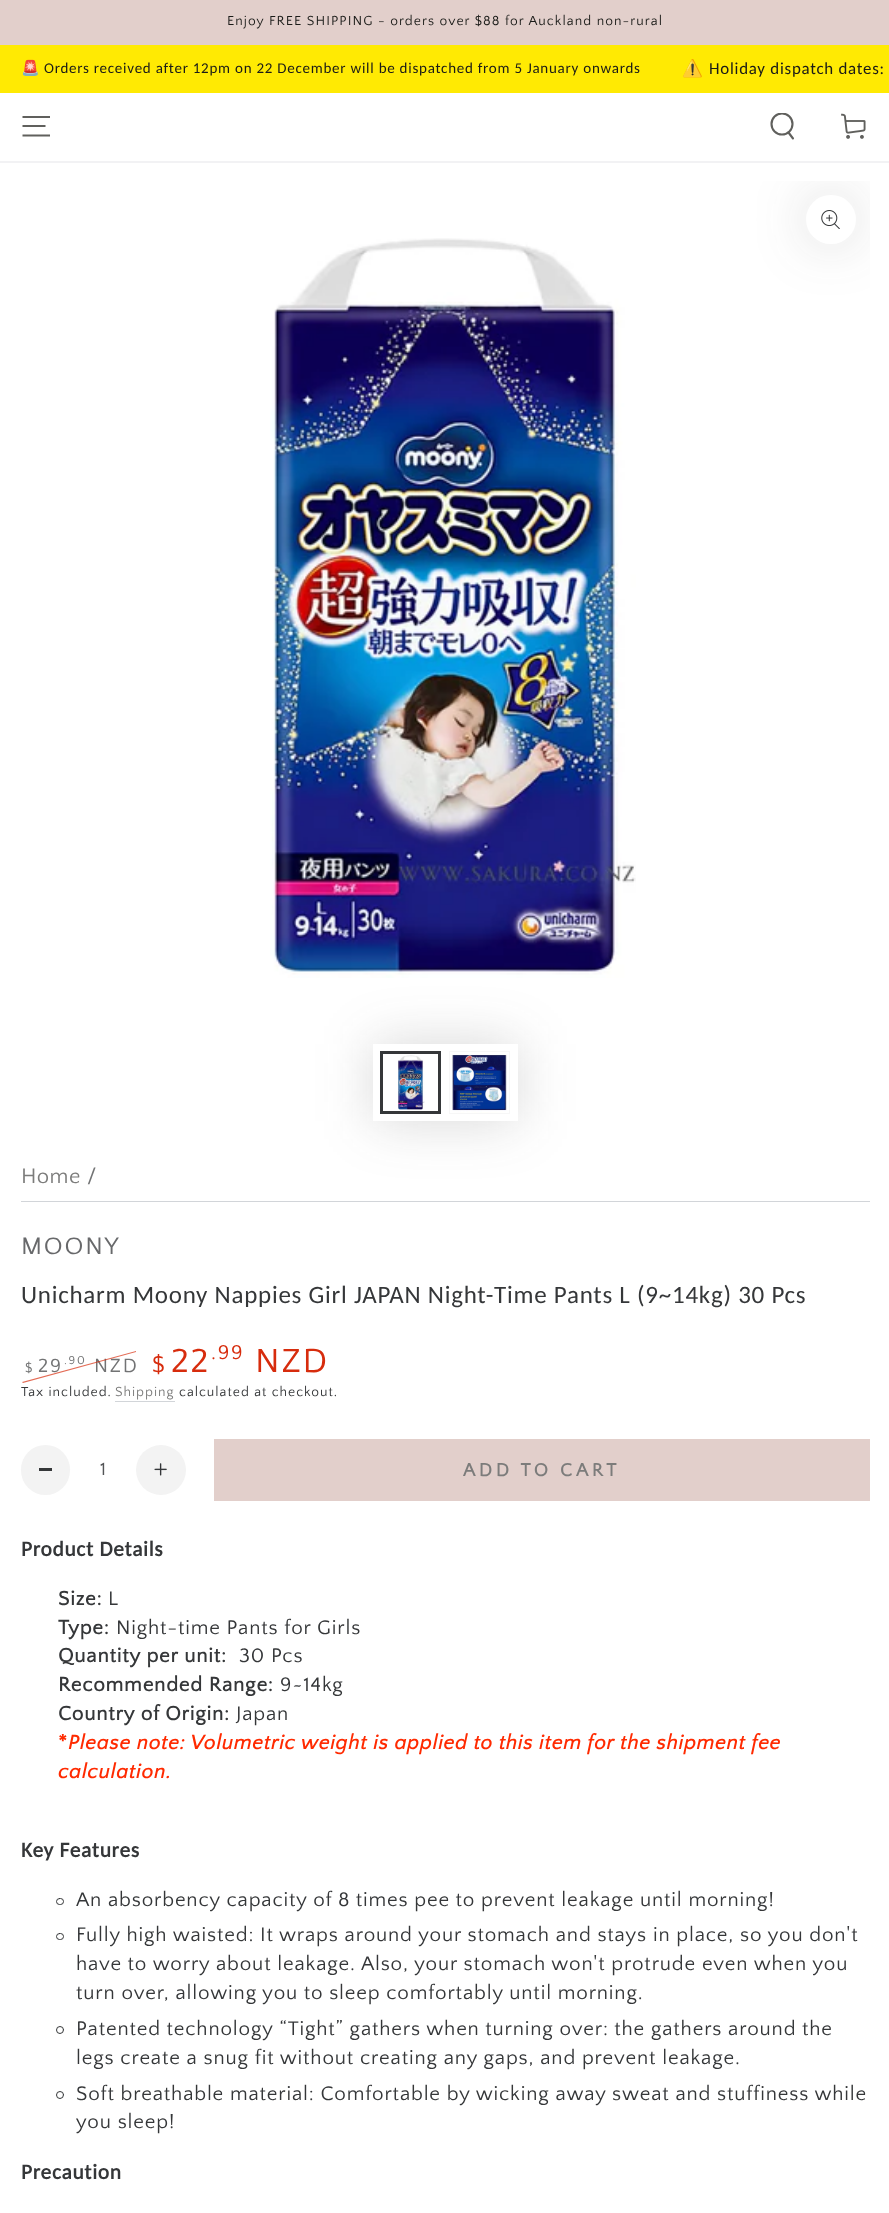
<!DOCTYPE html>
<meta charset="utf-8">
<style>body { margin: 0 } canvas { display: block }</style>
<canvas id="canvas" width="889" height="2213"></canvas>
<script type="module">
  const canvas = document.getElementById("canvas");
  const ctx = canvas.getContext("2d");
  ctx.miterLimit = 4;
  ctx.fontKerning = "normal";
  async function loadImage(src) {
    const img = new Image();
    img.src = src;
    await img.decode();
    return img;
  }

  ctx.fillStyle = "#ffffff";
  ctx.fillRect(0, 0, 889, 2213);
  ctx.fillStyle = "#e2cfcb";
  ctx.fillRect(0, 0, 889, 45);
  ctx.letterSpacing = "1.07px";
  ctx.font = "13.75px Quattrocento Sans";
  ctx.fillStyle = "#1a1b18";
  ctx.fillText("Enjoy FREE SHIPPING - orders over $88 for Auckland non-rural", 227, 25);
  ctx.fillStyle = "#ffea03";
  ctx.fillRect(0, 45, 889, 48);
  ctx.letterSpacing = "0.75px";
  ctx.font = "15px Noto Color Emoji";
  ctx.fillStyle = "#1a1b18";
  ctx.fillText("🚨", 21, 73);
  ctx.font = "15px Carlito";
  ctx.fillText("Orders received after 12pm on 22 December will be dispatched from 5 January onwards", 44, 73);
  ctx.font = "16.9px Noto Color Emoji";
  ctx.fillText("⚠️", 682, 74);
  ctx.font = "16.9px Carlito";
  ctx.fillText("Holiday dispatch dates:", 709, 74);
  ctx.save();
  ctx.beginPath();
  ctx.rect(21, 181, 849, 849);
  ctx.clip();
  ctx.fillStyle = "rgba(53, 55, 57, 0.2)";
  ctx.filter = "blur(27.5px)";
  ctx.beginPath();
  ctx.roundRect(806, 195, 50, 49, 24.5);
  ctx.fill();
  ctx.filter = "none";
  ctx.restore();
  ctx.fillStyle = "#f2f2f4";
  ctx.fillRect(0, 161, 889, 2);
  ctx.beginPath();
  ctx.moveTo(22.5, 135.5);
  ctx.lineTo(50, 135.5);
  ctx.moveTo(22.5, 126);
  ctx.lineTo(45.5, 126);
  ctx.moveTo(22.5, 117);
  ctx.lineTo(50, 117);
  ctx.strokeStyle = "#60605d";
  ctx.lineWidth = 1.9;
  ctx.stroke();
  ctx.save();
  ctx.beginPath();
  ctx.rect(769, 113, 27, 27);
  ctx.clip();
  ctx.beginPath();
  ctx.arc(782, 124, 10.5, 0, Math.PI * 2);
  ctx.lineWidth = 2.1;
  ctx.stroke();
  ctx.restore();
  ctx.beginPath();
  ctx.moveTo(788.5, 132.5);
  ctx.lineTo(793, 138.5);
  ctx.lineWidth = 2.1;
  ctx.lineCap = "round";
  ctx.stroke();
  ctx.drawImage(await loadImage("img1.png"), 841, 113, 25, 26);
  ctx.drawImage(await loadImage("img2.png"), 270, 238, 366, 740);
  ctx.fillStyle = "#ffffff";
  ctx.beginPath();
  ctx.roundRect(806, 195, 50, 49, 24.5);
  ctx.fill();
  ctx.drawImage(await loadImage("img3.png"), 821, 210, 19, 19);
  ctx.fillStyle = "#d2d5d9";
  ctx.fillRect(21, 1201, 849, 1);
  ctx.fillStyle = "rgba(53, 55, 57, 0.2)";
  ctx.filter = "blur(27.5px)";
  ctx.beginPath();
  ctx.rect(373, 1044, 145, 77);
  ctx.fill();
  ctx.filter = "none";
  ctx.fillStyle = "#ffffff";
  ctx.fillRect(373, 1044, 145, 77);
  ctx.drawImage(await loadImage("img4.png"), 398, 1055, 27, 55);
  ctx.strokeStyle = "#353739";
  ctx.lineWidth = 3;
  ctx.strokeRect(381.5, 1052.5, 58, 60);
  ctx.drawImage(await loadImage("img5.png"), 452, 1054, 55, 59);
  ctx.strokeStyle = "#f7f7f7";
  ctx.lineWidth = 1;
  ctx.strokeRect(449.5, 1051.5, 60, 62);
  ctx.letterSpacing = "0.5px";
  ctx.font = "22px Quattrocento Sans";
  ctx.fillStyle = "#7c7c7b";
  ctx.fillText("Home", 21, 1183);
  ctx.fillStyle = "#727374";
  ctx.fillText("/", 87, 1183);
  ctx.letterSpacing = "1.75px";
  ctx.font = "25px Quattrocento Sans";
  ctx.fillStyle = "#68696b";
  ctx.fillText("MOONY", 21, 1254);
  ctx.letterSpacing = "0.75px";
  ctx.font = "25px Carlito";
  ctx.fillStyle = "#353739";
  ctx.fillText("Unicharm Moony Nappies Girl JAPAN Night-Time Pants L (9~14kg) 30 Pcs", 21, 1303);
  ctx.letterSpacing = "1.75px";
  ctx.font = "14px Quattrocento Sans";
  ctx.fillStyle = "#727374";
  ctx.fillText("$", 25, 1372);
  ctx.font = "20px Quattrocento Sans";
  ctx.fillText("29", 38, 1372);
  ctx.font = "12px Quattrocento Sans";
  ctx.fillText(".90", 64, 1364);
  ctx.font = "20px Quattrocento Sans";
  ctx.fillText("NZD", 94, 1372);
  ctx.fillStyle = "rgba(215, 44, 13, 0.7)";
  ctx.beginPath();
  ctx.moveTo(22, 1382);
  ctx.lineTo(136, 1351);
  ctx.lineTo(136, 1352);
  ctx.lineTo(23, 1383);
  ctx.closePath();
  ctx.fill();
  ctx.font = "24px Quattrocento Sans";
  ctx.fillStyle = "#d72c0d";
  ctx.fillText("$", 152, 1372);
  ctx.font = "35px Quattrocento Sans";
  ctx.fillText("22", 171, 1372);
  ctx.font = "21px Quattrocento Sans";
  ctx.fillText(".99", 211, 1359);
  ctx.font = "35px Quattrocento Sans";
  ctx.fillText("NZD", 255, 1372);
  ctx.letterSpacing = "1px";
  ctx.font = "13.75px Quattrocento Sans";
  ctx.fillStyle = "#353739";
  ctx.fillText("Tax included.", 21, 1396);
  ctx.fillStyle = "#7c7c7b";
  ctx.fillText("Shipping", 115, 1396);
  ctx.fillStyle = "#d2d5d9";
  ctx.fillRect(115, 1401, 60, 1);
  ctx.fillStyle = "#353739";
  ctx.fillText("calculated at checkout.", 179, 1396);
  ctx.fillStyle = "#f3f3f3";
  ctx.beginPath();
  ctx.roundRect(21, 1445, 49, 50, 24.5);
  ctx.fill();
  ctx.fillStyle = "#353739";
  ctx.fillRect(39, 1468, 13, 3);
  ctx.letterSpacing = "0px";
  ctx.font = "19px Quattrocento Sans";
  ctx.fillStyle = "#535557";
  ctx.fillText("1", 100, 1475);
  ctx.fillStyle = "#f3f3f3";
  ctx.beginPath();
  ctx.arc(161, 1470, 25, 0, Math.PI * 2);
  ctx.fill();
  ctx.drawImage(await loadImage("img6.png"), 154, 1463, 13, 13);
  ctx.fillStyle = "#e2cfcb";
  ctx.fillRect(214, 1439, 656, 62);
  ctx.letterSpacing = "3.75px";
  ctx.font = "bold 18.75px Quattrocento Sans";
  ctx.fillStyle = "#7c7c7b";
  ctx.fillText("ADD TO CART", 463, 1476);
  ctx.letterSpacing = "0.75px";
  ctx.font = "bold 21.25px Carlito";
  ctx.fillStyle = "#353739";
  ctx.fillText("Product Details", 21, 1556);
  ctx.letterSpacing = "0.83px";
  ctx.font = "bold 20.6px Quattrocento Sans";
  ctx.fillText("Size:", 58, 1605);
  ctx.font = "20.6px Quattrocento Sans";
  ctx.fillText("L", 108, 1605);
  ctx.font = "bold 20.6px Quattrocento Sans";
  ctx.fillText("Type:", 58, 1634);
  ctx.font = "20.6px Quattrocento Sans";
  ctx.fillText("Night-time Pants for Girls", 116, 1634);
  ctx.font = "bold 20.6px Quattrocento Sans";
  ctx.fillText("Quantity per unit:", 58, 1662);
  ctx.font = "20.6px Quattrocento Sans";
  ctx.fillText("30 Pcs", 239, 1662);
  ctx.font = "bold 20.6px Quattrocento Sans";
  ctx.fillText("Recommended Range:", 58, 1691);
  ctx.font = "20.6px Quattrocento Sans";
  ctx.fillText("9~14kg", 280, 1691);
  ctx.font = "bold 20.6px Quattrocento Sans";
  ctx.fillText("Country of Origin:", 58, 1720);
  ctx.font = "20.6px Quattrocento Sans";
  ctx.fillText("Japan", 236, 1720);
  ctx.font = "bold 20.6px Quattrocento Sans";
  ctx.fillStyle = "#ff2a00";
  ctx.fillText("*", 58, 1749);
  ctx.font = "italic bold 20.6px Quattrocento Sans";
  ctx.fillText("Please note: Volumetric weight is applied to this item for the shipment fee", 68, 1749);
  ctx.fillText("calculation.", 58, 1778);
  ctx.letterSpacing = "0.75px";
  ctx.font = "bold 21.25px Carlito";
  ctx.fillStyle = "#353739";
  ctx.fillText("Key Features", 21, 1857);
  ctx.beginPath();
  ctx.roundRect(56.5, 1898.5, 7, 6, 3);
  ctx.strokeStyle = "#353739";
  ctx.stroke();
  ctx.letterSpacing = "0.83px";
  ctx.font = "20.6px Quattrocento Sans";
  ctx.fillText("An absorbency capacity of 8 times pee to prevent leakage until morning!", 76, 1906);
  ctx.beginPath();
  ctx.roundRect(56.5, 1933.5, 7, 6, 3);
  ctx.stroke();
  ctx.fillText("Fully high waisted: It wraps around your stomach and stays in place, so you don't", 76, 1941);
  ctx.fillText("have to worry about leakage. Also, your stomach won't protrude even when you", 76, 1970);
  ctx.fillText("turn over, allowing you to sleep comfortably until morning.", 76, 1999);
  ctx.beginPath();
  ctx.arc(60, 2030, 3.5, 0, Math.PI * 2);
  ctx.stroke();
  ctx.fillText("Patented technology “Tight” gathers when turning over: the gathers around the", 76, 2035);
  ctx.fillText("legs create a snug fit without creating any gaps, and prevent leakage.", 76, 2064);
  ctx.beginPath();
  ctx.arc(60, 2095, 3.5, 0, Math.PI * 2);
  ctx.stroke();
  ctx.fillText("Soft breathable material: Comfortable by wicking away sweat and stuffiness while", 76, 2100);
  ctx.fillText("you sleep!", 76, 2128);
  ctx.letterSpacing = "0.75px";
  ctx.font = "bold 21.25px Carlito";
  ctx.fillText("Precaution", 21, 2179);
</script>
